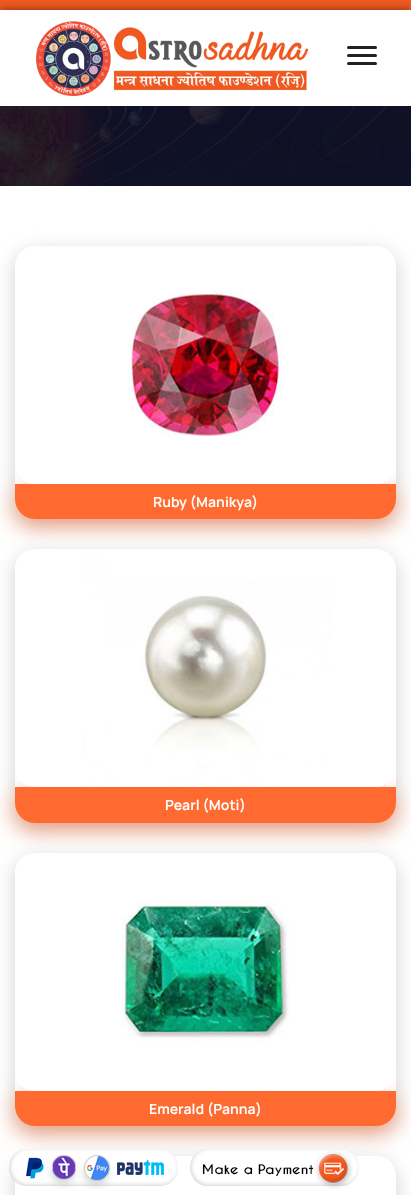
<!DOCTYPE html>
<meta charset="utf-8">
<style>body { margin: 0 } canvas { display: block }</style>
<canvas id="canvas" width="411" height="1195"></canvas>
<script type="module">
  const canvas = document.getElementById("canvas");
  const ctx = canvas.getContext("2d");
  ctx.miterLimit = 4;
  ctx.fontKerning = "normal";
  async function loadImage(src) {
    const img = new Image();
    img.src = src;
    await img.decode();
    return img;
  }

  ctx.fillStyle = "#ffffff";
  ctx.fillRect(0, 0, 411, 1195);
  ctx.fillStyle = "#f25920";
  ctx.fillRect(0, 0, 411, 10);
  ctx.save();
  ctx.beginPath();
  ctx.rect(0, 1, 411, 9);
  ctx.clip();
  ctx.fillStyle = "rgba(0, 0, 0, 0.5)";
  ctx.filter = "blur(5px)";
  ctx.beginPath();
  ctx.rect(0, 10, 411, 96);
  ctx.fill();
  ctx.filter = "none";
  ctx.restore();
  ctx.drawImage(await loadImage("img1.png"), 36, 21, 275, 75);
  ctx.fillStyle = "#222222";
  ctx.beginPath();
  ctx.roundRect(347, 54, 30, 3, 1.5);
  ctx.fill();
  ctx.beginPath();
  ctx.roundRect(347, 46, 30, 3, 1.5);
  ctx.fill();
  ctx.beginPath();
  ctx.roundRect(347, 62, 30, 3, 1.5);
  ctx.fill();
  ctx.drawImage(await loadImage("img2.png"), 0, 106, 411, 80);
  ctx.save();
  ctx.beginPath();
  ctx.moveTo(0, 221);
  ctx.lineTo(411, 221);
  ctx.lineTo(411, 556);
  ctx.lineTo(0, 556);
  ctx.closePath();
  ctx.moveTo(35, 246);
  ctx.lineTo(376, 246);
  ctx.bezierCurveTo(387, 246, 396, 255, 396, 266);
  ctx.lineTo(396, 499);
  ctx.bezierCurveTo(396, 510, 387, 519, 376, 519);
  ctx.lineTo(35, 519);
  ctx.bezierCurveTo(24, 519, 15, 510, 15, 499);
  ctx.lineTo(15, 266);
  ctx.bezierCurveTo(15, 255, 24, 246, 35, 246);
  ctx.closePath();
  ctx.clip("evenodd");
  ctx.fillStyle = "#d0d0d0";
  ctx.filter = "blur(10px)";
  ctx.beginPath();
  ctx.roundRect(15, 252, 381, 273, 20);
  ctx.fill();
  ctx.filter = "none";
  ctx.restore();
  ctx.fillStyle = "rgba(255, 106, 48, 0.6)";
  ctx.filter = "blur(12.5px)";
  ctx.beginPath();
  ctx.roundRect(15, 489, 381, 35, 20);
  ctx.fill();
  ctx.filter = "none";
  ctx.drawImage(await loadImage("img3.png"), 16, 258, 379, 226);
  ctx.fillStyle = "#ff6a30";
  ctx.beginPath();
  ctx.roundRect(15, 484, 381, 35, [0, 0, 20, 20]);
  ctx.fill();
  ctx.font = "bold 14px Manrope";
  ctx.fillStyle = "#ffffff";
  ctx.fillText("Ruby (Manikya)", 153, 507);
  ctx.save();
  ctx.beginPath();
  ctx.moveTo(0, 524);
  ctx.lineTo(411, 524);
  ctx.lineTo(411, 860);
  ctx.lineTo(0, 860);
  ctx.closePath();
  ctx.moveTo(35, 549);
  ctx.lineTo(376, 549);
  ctx.bezierCurveTo(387, 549, 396, 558, 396, 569);
  ctx.lineTo(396, 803);
  ctx.bezierCurveTo(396, 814, 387, 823, 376, 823);
  ctx.lineTo(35, 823);
  ctx.bezierCurveTo(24, 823, 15, 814, 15, 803);
  ctx.lineTo(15, 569);
  ctx.bezierCurveTo(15, 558, 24, 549, 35, 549);
  ctx.closePath();
  ctx.clip("evenodd");
  ctx.fillStyle = "#d0d0d0";
  ctx.filter = "blur(10px)";
  ctx.beginPath();
  ctx.roundRect(15, 555, 381, 274, 20);
  ctx.fill();
  ctx.filter = "none";
  ctx.restore();
  ctx.fillStyle = "rgba(255, 106, 48, 0.6)";
  ctx.filter = "blur(12.5px)";
  ctx.beginPath();
  ctx.roundRect(15, 792, 381, 36, 20);
  ctx.fill();
  ctx.filter = "none";
  ctx.drawImage(await loadImage("img4.png"), 16, 552, 377, 235);
  ctx.fillStyle = "#ff6a30";
  ctx.beginPath();
  ctx.roundRect(15, 787, 381, 36, [0, 0, 20, 20]);
  ctx.fill();
  ctx.fillStyle = "#ffffff";
  ctx.fillText("Pearl (Moti)", 165, 810);
  ctx.save();
  ctx.beginPath();
  ctx.moveTo(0, 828);
  ctx.lineTo(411, 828);
  ctx.lineTo(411, 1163);
  ctx.lineTo(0, 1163);
  ctx.closePath();
  ctx.moveTo(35, 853);
  ctx.lineTo(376, 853);
  ctx.bezierCurveTo(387, 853, 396, 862, 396, 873);
  ctx.lineTo(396, 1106);
  ctx.bezierCurveTo(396, 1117, 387, 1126, 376, 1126);
  ctx.lineTo(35, 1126);
  ctx.bezierCurveTo(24, 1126, 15, 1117, 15, 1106);
  ctx.lineTo(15, 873);
  ctx.bezierCurveTo(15, 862, 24, 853, 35, 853);
  ctx.closePath();
  ctx.clip("evenodd");
  ctx.fillStyle = "#d0d0d0";
  ctx.filter = "blur(10px)";
  ctx.beginPath();
  ctx.roundRect(15, 859, 381, 273, 20);
  ctx.fill();
  ctx.filter = "none";
  ctx.restore();
  ctx.fillStyle = "rgba(255, 106, 48, 0.6)";
  ctx.filter = "blur(12.5px)";
  ctx.beginPath();
  ctx.roundRect(15, 1096, 381, 35, 20);
  ctx.fill();
  ctx.filter = "none";
  ctx.drawImage(await loadImage("img5.png"), 16, 856, 377, 235);
  ctx.fillStyle = "#ff6a30";
  ctx.beginPath();
  ctx.roundRect(15, 1091, 381, 35, [0, 0, 20, 20]);
  ctx.fill();
  ctx.fillStyle = "#ffffff";
  ctx.fillText("Emerald (Panna)", 149, 1114);
  ctx.save();
  ctx.beginPath();
  ctx.moveTo(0, 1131);
  ctx.lineTo(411, 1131);
  ctx.lineTo(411, 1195);
  ctx.lineTo(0, 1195);
  ctx.closePath();
  ctx.moveTo(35, 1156);
  ctx.lineTo(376, 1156);
  ctx.bezierCurveTo(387, 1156, 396, 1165, 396, 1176);
  ctx.lineTo(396, 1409);
  ctx.bezierCurveTo(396, 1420, 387, 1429, 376, 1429);
  ctx.lineTo(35, 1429);
  ctx.bezierCurveTo(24, 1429, 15, 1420, 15, 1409);
  ctx.lineTo(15, 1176);
  ctx.bezierCurveTo(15, 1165, 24, 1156, 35, 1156);
  ctx.closePath();
  ctx.clip("evenodd");
  ctx.fillStyle = "#d0d0d0";
  ctx.filter = "blur(10px)";
  ctx.beginPath();
  ctx.roundRect(15, 1162, 381, 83, 20);
  ctx.fill();
  ctx.filter = "none";
  ctx.restore();
  ctx.drawImage(await loadImage("img6.png"), 175, 1159, 213, 10);
  ctx.drawImage(await loadImage("img7.png"), 9, 1149, 169, 40);
  ctx.drawImage(await loadImage("img8.png"), 190, 1149, 169, 40);
</script>
